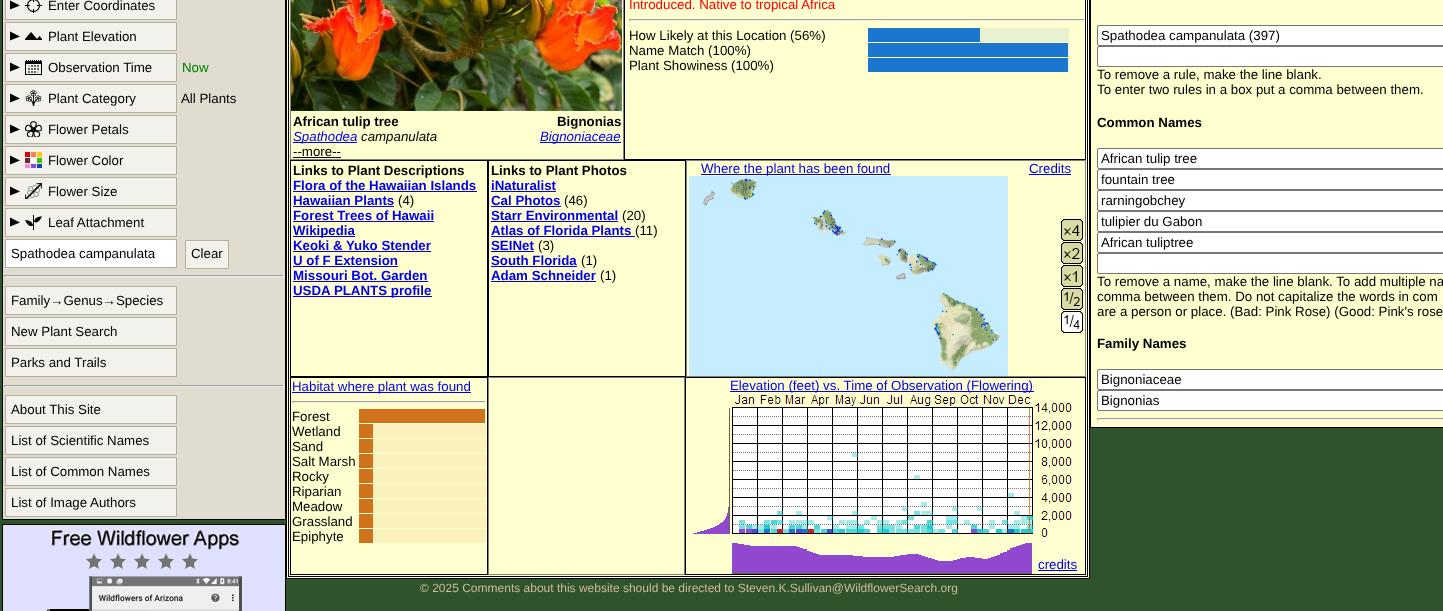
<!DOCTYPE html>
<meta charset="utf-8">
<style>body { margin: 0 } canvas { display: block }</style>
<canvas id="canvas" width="1443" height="611"></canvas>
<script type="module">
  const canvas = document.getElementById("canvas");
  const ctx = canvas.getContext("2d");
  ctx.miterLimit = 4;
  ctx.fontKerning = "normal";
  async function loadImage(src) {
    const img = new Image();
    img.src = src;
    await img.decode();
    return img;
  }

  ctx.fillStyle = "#2f542c";
  ctx.fillRect(0, 0, 1443, 611);
  ctx.fillStyle = "#e0ddd0";
  ctx.beginPath();
  ctx.rect(2.5, -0.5, 283, 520);
  ctx.fill();
  ctx.strokeStyle = "#000000";
  ctx.stroke();
  ctx.fillStyle = "#f3f1eb";
  ctx.beginPath();
  ctx.rect(5.5, -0.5, 171, 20);
  ctx.fill();
  ctx.strokeStyle = "#b3af9d";
  ctx.stroke();
  ctx.drawImage(await loadImage("img1.png"), 10, 0, 32, 13);
  ctx.font = "13.3px Liberation Sans";
  ctx.fillStyle = "#000000";
  ctx.fillText("Enter Coordinates", 48, 10);
  ctx.fillStyle = "#f3f1eb";
  ctx.beginPath();
  ctx.rect(5.5, 22.5, 171, 28);
  ctx.fill();
  ctx.stroke();
  ctx.drawImage(await loadImage("img2.png"), 10, 31, 32, 10);
  ctx.fillStyle = "#000000";
  ctx.fillText("Plant Elevation", 48, 41);
  ctx.fillStyle = "#f3f1eb";
  ctx.beginPath();
  ctx.rect(5.5, 53.5, 171, 28);
  ctx.fill();
  ctx.stroke();
  ctx.drawImage(await loadImage("img3.png"), 10, 60, 32, 15);
  ctx.fillStyle = "#000000";
  ctx.fillText("Observation Time", 48, 72);
  ctx.fillStyle = "#008000";
  ctx.fillText("Now", 182, 72);
  ctx.fillStyle = "#f3f1eb";
  ctx.beginPath();
  ctx.rect(5.5, 84.5, 171, 28);
  ctx.fill();
  ctx.stroke();
  ctx.drawImage(await loadImage("img4.png"), 10, 90, 32, 16);
  ctx.fillStyle = "#000000";
  ctx.fillText("Plant Category", 48, 103);
  ctx.fillText("All Plants", 181, 103);
  ctx.fillStyle = "#f3f1eb";
  ctx.beginPath();
  ctx.rect(5.5, 115.5, 171, 28);
  ctx.fill();
  ctx.stroke();
  ctx.drawImage(await loadImage("img5.png"), 10, 121, 32, 16);
  ctx.fillStyle = "#000000";
  ctx.fillText("Flower Petals", 48, 134);
  ctx.fillStyle = "#f3f1eb";
  ctx.beginPath();
  ctx.rect(5.5, 146.5, 171, 28);
  ctx.fill();
  ctx.stroke();
  ctx.drawImage(await loadImage("img6.png"), 10, 152, 32, 16);
  ctx.fillStyle = "#000000";
  ctx.fillText("Flower Color", 48, 165);
  ctx.fillStyle = "#f3f1eb";
  ctx.beginPath();
  ctx.rect(5.5, 177.5, 171, 28);
  ctx.fill();
  ctx.stroke();
  ctx.drawImage(await loadImage("img7.png"), 10, 183, 32, 16);
  ctx.fillStyle = "#000000";
  ctx.fillText("Flower Size", 48, 196);
  ctx.fillStyle = "#f3f1eb";
  ctx.beginPath();
  ctx.rect(5.5, 208.5, 171, 28);
  ctx.fill();
  ctx.stroke();
  ctx.drawImage(await loadImage("img8.png"), 10, 215, 32, 15);
  ctx.fillStyle = "#000000";
  ctx.fillText("Leaf Attachment", 48, 227);
  ctx.fillStyle = "#ffffff";
  ctx.beginPath();
  ctx.rect(5.5, 239.5, 171, 28);
  ctx.fill();
  ctx.stroke();
  ctx.fillStyle = "#000000";
  ctx.fillText("Spathodea campanulata", 11, 258);
  ctx.fillStyle = "#f3f1eb";
  ctx.beginPath();
  ctx.rect(185.5, 240.5, 43, 28);
  ctx.fill();
  ctx.stroke();
  ctx.fillStyle = "#000000";
  ctx.fillText("Clear", 191, 258);
  ctx.fillStyle = "#9f9f9f";
  ctx.fillRect(4, 275, 280, 1);
  ctx.fillStyle = "#eeeeee";
  ctx.fillRect(283, 275, 1, 2);
  ctx.fillRect(4, 276, 280, 1);
  ctx.fillStyle = "#9f9f9f";
  ctx.fillRect(4, 275, 1, 2);
  ctx.fillStyle = "#f3f1eb";
  ctx.beginPath();
  ctx.rect(5.5, 286.5, 171, 28);
  ctx.fill();
  ctx.stroke();
  ctx.fillStyle = "#000000";
  ctx.fillText("Family→Genus→Species", 11, 305);
  ctx.fillStyle = "#f3f1eb";
  ctx.beginPath();
  ctx.rect(5.5, 317.5, 171, 28);
  ctx.fill();
  ctx.stroke();
  ctx.fillStyle = "#000000";
  ctx.fillText("New Plant Search", 11, 336);
  ctx.fillStyle = "#f3f1eb";
  ctx.beginPath();
  ctx.rect(5.5, 348.5, 171, 28);
  ctx.fill();
  ctx.stroke();
  ctx.fillStyle = "#000000";
  ctx.fillText("Parks and Trails", 11, 367);
  ctx.fillStyle = "#9f9f9f";
  ctx.fillRect(4, 385, 280, 1);
  ctx.fillStyle = "#eeeeee";
  ctx.fillRect(283, 385, 1, 2);
  ctx.fillRect(4, 386, 280, 1);
  ctx.fillStyle = "#9f9f9f";
  ctx.fillRect(4, 385, 1, 2);
  ctx.fillStyle = "#f3f1eb";
  ctx.beginPath();
  ctx.rect(5.5, 395.5, 171, 28);
  ctx.fill();
  ctx.stroke();
  ctx.fillStyle = "#000000";
  ctx.fillText("About This Site", 11, 414);
  ctx.fillStyle = "#f3f1eb";
  ctx.beginPath();
  ctx.rect(5.5, 426.5, 171, 28);
  ctx.fill();
  ctx.stroke();
  ctx.fillStyle = "#000000";
  ctx.fillText("List of Scientific Names", 11, 445);
  ctx.fillStyle = "#f3f1eb";
  ctx.beginPath();
  ctx.rect(5.5, 457.5, 171, 28);
  ctx.fill();
  ctx.stroke();
  ctx.fillStyle = "#000000";
  ctx.fillText("List of Common Names", 11, 476);
  ctx.fillStyle = "#f3f1eb";
  ctx.beginPath();
  ctx.rect(5.5, 488.5, 171, 28);
  ctx.fill();
  ctx.stroke();
  ctx.fillStyle = "#000000";
  ctx.fillText("List of Image Authors", 11, 507);
  ctx.fillStyle = "#e0e0ff";
  ctx.beginPath();
  ctx.rect(2.5, 524.5, 283, 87);
  ctx.fill();
  ctx.strokeStyle = "#000000";
  ctx.stroke();
  ctx.drawImage(await loadImage("img9.png"), 47, 529, 195, 82);
  ctx.fillStyle = "#ffffd0";
  ctx.beginPath();
  ctx.rect(286.5, -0.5, 803, 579);
  ctx.fill();
  ctx.stroke();
  ctx.strokeRect(288.5, -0.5, 799, 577);
  ctx.strokeRect(624.5, -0.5, 461, 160);
  ctx.fillStyle = "#ff0000";
  ctx.fillText("Introduced. Native to tropical Africa", 629, 9);
  ctx.fillStyle = "#9f9f9f";
  ctx.fillRect(629, 19, 456, 1);
  ctx.fillStyle = "#eeeeee";
  ctx.fillRect(1084, 19, 1, 2);
  ctx.fillRect(629, 20, 456, 1);
  ctx.fillStyle = "#9f9f9f";
  ctx.fillRect(629, 19, 1, 2);
  ctx.fillStyle = "#000000";
  ctx.fillText("How Likely at this Location (56%)", 629, 40);
  ctx.fillStyle = "#1b76cf";
  ctx.fillRect(868, 28, 112, 14);
  ctx.fillStyle = "#e8f1d0";
  ctx.fillRect(980, 28, 89, 14);
  ctx.fillStyle = "#000000";
  ctx.fillText("Name Match (100%)", 629, 55);
  ctx.fillStyle = "#1b76cf";
  ctx.fillRect(868, 43, 200, 14);
  ctx.fillStyle = "#e8f1d0";
  ctx.fillRect(1068, 43, 1, 14);
  ctx.fillStyle = "#000000";
  ctx.fillText("Plant Showiness (100%)", 629, 70);
  ctx.fillStyle = "#1b76cf";
  ctx.fillRect(868, 58, 200, 14);
  ctx.fillStyle = "#e8f1d0";
  ctx.fillRect(1068, 58, 1, 14);
  ctx.strokeStyle = "#808080";
  ctx.strokeRect(290.5, -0.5, 333, 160);
  ctx.drawImage(await loadImage("img10.png"), 291, 0, 331, 111);
  ctx.font = "bold 13.3px Liberation Sans";
  ctx.fillStyle = "#000000";
  ctx.fillText("African tulip tree", 293, 126);
  ctx.fillText("Bignonias", 557, 126);
  ctx.fillStyle = "#0000ee";
  ctx.fillRect(293, 142, 64, 1);
  ctx.font = "italic 13.3px Liberation Sans";
  ctx.fillText("Spathodea", 293, 141);
  ctx.fillStyle = "#000000";
  ctx.fillText("campanulata", 361, 141);
  ctx.fillStyle = "#0000ee";
  ctx.fillRect(540, 142, 81, 1);
  ctx.fillText("Bignoniaceae", 540, 141);
  ctx.font = "13.3px Liberation Sans";
  ctx.fillStyle = "#000000";
  ctx.fillText("--more--", 293, 156);
  ctx.fillRect(293, 157, 48, 1);
  ctx.strokeStyle = "#000000";
  ctx.strokeRect(290.5, 160.5, 197, 216);
  ctx.font = "bold 13.3px Liberation Sans";
  ctx.fillText("Links to Plant Descriptions", 293, 175);
  ctx.fillStyle = "#0000ee";
  ctx.fillText("Flora of the Hawaiian Islands", 293, 190);
  ctx.fillRect(293, 191, 184, 1);
  ctx.fillText("Hawaiian Plants", 293, 205);
  ctx.fillRect(293, 206, 101, 1);
  ctx.font = "13.3px Liberation Sans";
  ctx.fillStyle = "#000000";
  ctx.fillText("(4)", 398, 205);
  ctx.font = "bold 13.3px Liberation Sans";
  ctx.fillStyle = "#0000ee";
  ctx.fillText("Forest Trees of Hawaii", 293, 220);
  ctx.fillRect(293, 221, 141, 1);
  ctx.fillRect(293, 236, 62, 1);
  ctx.fillText("Wikipedia", 293, 235);
  ctx.fillText("Keoki & Yuko Stender", 293, 250);
  ctx.fillRect(293, 251, 138, 1);
  ctx.fillText("U of F Extension", 293, 265);
  ctx.fillRect(293, 266, 105, 1);
  ctx.fillText("Missouri Bot. Garden", 293, 280);
  ctx.fillRect(293, 281, 135, 1);
  ctx.fillRect(293, 296, 139, 1);
  ctx.fillText("USDA PLANTS profile", 293, 295);
  ctx.strokeRect(488.5, 160.5, 197, 216);
  ctx.fillStyle = "#000000";
  ctx.fillText("Links to Plant Photos", 491, 175);
  ctx.fillStyle = "#0000ee";
  ctx.fillText("iNaturalist", 491, 190);
  ctx.fillRect(491, 191, 65, 1);
  ctx.fillText("Cal Photos", 491, 205);
  ctx.fillRect(491, 206, 70, 1);
  ctx.font = "13.3px Liberation Sans";
  ctx.fillStyle = "#000000";
  ctx.fillText("(46)", 564, 205);
  ctx.font = "bold 13.3px Liberation Sans";
  ctx.fillStyle = "#0000ee";
  ctx.fillText("Starr Environmental", 491, 220);
  ctx.fillRect(491, 221, 127, 1);
  ctx.font = "13.3px Liberation Sans";
  ctx.fillStyle = "#000000";
  ctx.fillText("(20)", 622, 220);
  ctx.font = "bold 13.3px Liberation Sans";
  ctx.fillStyle = "#0000ee";
  ctx.fillText("Atlas of Florida Plants", 491, 235);
  ctx.fillRect(491, 236, 144, 1);
  ctx.font = "13.3px Liberation Sans";
  ctx.fillStyle = "#000000";
  ctx.fillText("(11)", 635, 235);
  ctx.font = "bold 13.3px Liberation Sans";
  ctx.fillStyle = "#0000ee";
  ctx.fillText("SEINet", 491, 250);
  ctx.fillRect(491, 251, 43, 1);
  ctx.font = "13.3px Liberation Sans";
  ctx.fillStyle = "#000000";
  ctx.fillText("(3)", 538, 250);
  ctx.font = "bold 13.3px Liberation Sans";
  ctx.fillStyle = "#0000ee";
  ctx.fillText("South Florida", 491, 265);
  ctx.fillRect(491, 266, 86, 1);
  ctx.font = "13.3px Liberation Sans";
  ctx.fillStyle = "#000000";
  ctx.fillText("(1)", 581, 265);
  ctx.font = "bold 13.3px Liberation Sans";
  ctx.fillStyle = "#0000ee";
  ctx.fillText("Adam Schneider", 491, 280);
  ctx.fillRect(491, 281, 105, 1);
  ctx.font = "13.3px Liberation Sans";
  ctx.fillStyle = "#000000";
  ctx.fillText("(1)", 600, 280);
  ctx.strokeStyle = "#808080";
  ctx.strokeRect(686.5, 160.5, 399, 216);
  ctx.fillStyle = "#0000ee";
  ctx.fillRect(701, 174, 190, 1);
  ctx.fillText("Where the plant has been found", 701, 173);
  ctx.fillText("Credits", 1029, 173);
  ctx.fillRect(1029, 174, 42, 1);
  ctx.drawImage(await loadImage("img11.png"), 689, 176, 319, 200);
  ctx.drawImage(await loadImage("img12.png"), 1061, 219, 22, 114);
  ctx.strokeStyle = "#000000";
  ctx.strokeRect(290.5, 377.5, 197, 197);
  ctx.fillRect(292, 392, 179, 1);
  ctx.fillText("Habitat where plant was found", 292, 391);
  ctx.fillStyle = "#9f9f9f";
  ctx.fillRect(292, 401, 194, 1);
  ctx.fillStyle = "#eeeeee";
  ctx.fillRect(485, 401, 1, 2);
  ctx.fillRect(292, 402, 194, 1);
  ctx.fillStyle = "#9f9f9f";
  ctx.fillRect(292, 401, 1, 2);
  ctx.fillStyle = "#000000";
  ctx.fillText("Forest", 292, 421);
  ctx.fillStyle = "#d0721b";
  ctx.fillRect(359, 409, 126, 14);
  ctx.fillStyle = "#faf1bd";
  ctx.fillRect(485, 409, 1, 14);
  ctx.fillStyle = "#000000";
  ctx.fillText("Wetland", 292, 436);
  ctx.fillStyle = "#d0721b";
  ctx.fillRect(359, 424, 14, 14);
  ctx.fillStyle = "#faf1bd";
  ctx.fillRect(373, 424, 113, 14);
  ctx.fillStyle = "#000000";
  ctx.fillText("Sand", 292, 451);
  ctx.fillStyle = "#d0721b";
  ctx.fillRect(359, 439, 14, 14);
  ctx.fillStyle = "#faf1bd";
  ctx.fillRect(373, 439, 113, 14);
  ctx.fillStyle = "#000000";
  ctx.fillText("Salt Marsh", 292, 466);
  ctx.fillStyle = "#d0721b";
  ctx.fillRect(359, 454, 14, 14);
  ctx.fillStyle = "#faf1bd";
  ctx.fillRect(373, 454, 113, 14);
  ctx.fillStyle = "#000000";
  ctx.fillText("Rocky", 292, 481);
  ctx.fillStyle = "#d0721b";
  ctx.fillRect(359, 469, 14, 14);
  ctx.fillStyle = "#faf1bd";
  ctx.fillRect(373, 469, 113, 14);
  ctx.fillStyle = "#000000";
  ctx.fillText("Riparian", 292, 496);
  ctx.fillStyle = "#d0721b";
  ctx.fillRect(359, 484, 14, 14);
  ctx.fillStyle = "#faf1bd";
  ctx.fillRect(373, 484, 113, 14);
  ctx.fillStyle = "#000000";
  ctx.fillText("Meadow", 292, 511);
  ctx.fillStyle = "#d0721b";
  ctx.fillRect(359, 499, 14, 14);
  ctx.fillStyle = "#faf1bd";
  ctx.fillRect(373, 499, 113, 14);
  ctx.fillStyle = "#000000";
  ctx.fillText("Grassland", 292, 526);
  ctx.fillStyle = "#d0721b";
  ctx.fillRect(359, 514, 14, 14);
  ctx.fillStyle = "#faf1bd";
  ctx.fillRect(373, 514, 113, 14);
  ctx.fillStyle = "#000000";
  ctx.fillText("Epiphyte", 292, 541);
  ctx.fillStyle = "#d0721b";
  ctx.fillRect(359, 529, 14, 14);
  ctx.fillStyle = "#faf1bd";
  ctx.fillRect(373, 529, 113, 14);
  ctx.strokeStyle = "#808080";
  ctx.strokeRect(488.5, 377.5, 196, 197);
  ctx.strokeStyle = "#000000";
  ctx.strokeRect(685.5, 377.5, 400, 197);
  ctx.fillStyle = "#0000ee";
  ctx.fillRect(730, 391, 304, 1);
  ctx.fillText("Elevation (feet) vs. Time of Observation (Flowering)", 730, 390);
  ctx.fillStyle = "#666653";
  ctx.fillRect(729, 408, 1, 126);
  ctx.drawImage(await loadImage("img13.png"), 732, 395, 340, 142);
  ctx.fillStyle = "rgba(25, 207, 205, 0.4)";
  ctx.fillRect(852, 453, 6, 4);
  ctx.fillStyle = "rgba(26, 206, 205, 0.8)";
  ctx.fillRect(1027, 516, 6, 4);
  ctx.fillStyle = "rgba(25, 207, 205, 0.4)";
  ctx.fillRect(1027, 520, 6, 4);
  ctx.fillStyle = "rgba(27, 207, 205, 0.6)";
  ctx.fillRect(1027, 525, 6, 4);
  ctx.fillStyle = "#1bcfce";
  ctx.fillRect(1021, 529, 12, 4);
  ctx.fillStyle = "rgba(207, 114, 26, 0.8)";
  ctx.fillRect(1029, 408, 1, 126);
  ctx.fillStyle = "#a3eceb";
  ctx.fillRect(914, 475, 6, 4);
  ctx.fillRect(1008, 493, 6, 4);
  ctx.fillRect(921, 502, 6, 4);
  ctx.fillStyle = "#8f48ce";
  ctx.fillRect(728, 507, 1, 6);
  ctx.fillStyle = "rgba(25, 207, 205, 0.4)";
  ctx.fillRect(902, 507, 6, 4);
  ctx.fillRect(952, 507, 6, 4);
  ctx.fillRect(977, 507, 6, 4);
  ctx.fillStyle = "#8f48ce";
  ctx.fillRect(727, 513, 2, 3);
  ctx.fillStyle = "rgba(27, 207, 205, 0.6)";
  ctx.fillRect(777, 511, 6, 4);
  ctx.fillStyle = "#a3eceb";
  ctx.fillRect(796, 511, 6, 4);
  ctx.fillStyle = "rgba(25, 207, 205, 0.4)";
  ctx.fillRect(852, 511, 6, 4);
  ctx.fillStyle = "#76e2e1";
  ctx.fillRect(914, 511, 6, 4);
  ctx.fillStyle = "#a3eceb";
  ctx.fillRect(921, 511, 6, 4);
  ctx.fillStyle = "rgba(25, 207, 205, 0.4)";
  ctx.fillRect(927, 511, 6, 4);
  ctx.fillStyle = "#a3eceb";
  ctx.fillRect(1014, 511, 6, 4);
  ctx.fillStyle = "#8f48ce";
  ctx.fillRect(726, 516, 3, 2);
  ctx.fillStyle = "rgba(25, 207, 205, 0.4)";
  ctx.fillRect(827, 516, 6, 4);
  ctx.fillStyle = "#a3eceb";
  ctx.fillRect(871, 516, 6, 4);
  ctx.fillStyle = "#76e2e1";
  ctx.fillRect(908, 516, 6, 4);
  ctx.fillStyle = "#a3eceb";
  ctx.fillRect(946, 516, 6, 4);
  ctx.fillStyle = "rgba(25, 207, 205, 0.4)";
  ctx.fillRect(952, 516, 6, 4);
  ctx.fillStyle = "#a3eceb";
  ctx.fillRect(1021, 516, 6, 8);
  ctx.fillStyle = "#8f48ce";
  ctx.fillRect(725, 518, 4, 2);
  ctx.fillRect(724, 520, 5, 1);
  ctx.fillStyle = "#76e2e1";
  ctx.fillRect(739, 520, 6, 4);
  ctx.fillRect(764, 520, 6, 4);
  ctx.fillStyle = "#48d8d7";
  ctx.fillRect(771, 520, 6, 4);
  ctx.fillStyle = "rgba(27, 207, 205, 0.6)";
  ctx.fillRect(777, 520, 6, 4);
  ctx.fillStyle = "#a3eceb";
  ctx.fillRect(789, 520, 6, 4);
  ctx.fillRect(796, 520, 6, 4);
  ctx.fillStyle = "rgba(25, 207, 205, 0.4)";
  ctx.fillRect(802, 520, 6, 4);
  ctx.fillStyle = "#a3eceb";
  ctx.fillRect(808, 520, 6, 4);
  ctx.fillRect(839, 520, 6, 4);
  ctx.fillRect(846, 520, 6, 4);
  ctx.fillStyle = "rgba(25, 207, 205, 0.4)";
  ctx.fillRect(852, 520, 6, 4);
  ctx.fillStyle = "#a3eceb";
  ctx.fillRect(864, 520, 6, 4);
  ctx.fillStyle = "rgba(25, 207, 205, 0.4)";
  ctx.fillRect(877, 520, 6, 4);
  ctx.fillStyle = "#a3eceb";
  ctx.fillRect(883, 520, 6, 4);
  ctx.fillRect(896, 520, 6, 4);
  ctx.fillStyle = "rgba(27, 207, 205, 0.6)";
  ctx.fillRect(902, 520, 6, 4);
  ctx.fillStyle = "rgba(26, 206, 205, 0.8)";
  ctx.fillRect(927, 520, 6, 4);
  ctx.fillStyle = "#76e2e1";
  ctx.fillRect(946, 520, 6, 4);
  ctx.fillStyle = "rgba(27, 207, 205, 0.6)";
  ctx.fillRect(952, 520, 6, 4);
  ctx.fillStyle = "#a3eceb";
  ctx.fillRect(964, 520, 6, 4);
  ctx.fillRect(989, 520, 6, 4);
  ctx.fillStyle = "rgba(27, 207, 205, 0.6)";
  ctx.fillRect(1002, 520, 6, 4);
  ctx.fillStyle = "#a3eceb";
  ctx.fillRect(1014, 520, 6, 4);
  ctx.fillStyle = "#8f48ce";
  ctx.fillRect(723, 521, 6, 1);
  ctx.fillRect(722, 522, 7, 1);
  ctx.fillRect(720, 523, 9, 1);
  ctx.fillRect(719, 524, 10, 1);
  ctx.fillRect(717, 525, 12, 1);
  ctx.fillStyle = "#76e2e1";
  ctx.fillRect(739, 525, 6, 4);
  ctx.fillStyle = "#48d8d7";
  ctx.fillRect(746, 525, 6, 4);
  ctx.fillStyle = "rgba(25, 207, 205, 0.4)";
  ctx.fillRect(752, 525, 6, 4);
  ctx.fillStyle = "#a3eceb";
  ctx.fillRect(758, 525, 6, 4);
  ctx.fillStyle = "#1bcfce";
  ctx.fillRect(764, 525, 6, 4);
  ctx.fillStyle = "#a3eceb";
  ctx.fillRect(771, 525, 6, 4);
  ctx.fillStyle = "#48d8d7";
  ctx.fillRect(789, 525, 6, 4);
  ctx.fillRect(796, 525, 6, 4);
  ctx.fillStyle = "rgba(25, 207, 205, 0.4)";
  ctx.fillRect(802, 525, 6, 4);
  ctx.fillStyle = "#48d8d7";
  ctx.fillRect(814, 525, 6, 4);
  ctx.fillStyle = "#a3eceb";
  ctx.fillRect(833, 525, 6, 4);
  ctx.fillRect(846, 525, 6, 4);
  ctx.fillStyle = "rgba(25, 207, 205, 0.4)";
  ctx.fillRect(852, 525, 6, 4);
  ctx.fillStyle = "#76e2e1";
  ctx.fillRect(858, 525, 6, 4);
  ctx.fillStyle = "rgba(27, 207, 205, 0.6)";
  ctx.fillRect(877, 525, 6, 4);
  ctx.fillStyle = "#76e2e1";
  ctx.fillRect(883, 525, 12, 4);
  ctx.fillStyle = "#a3eceb";
  ctx.fillRect(896, 525, 6, 4);
  ctx.fillStyle = "#48d8d7";
  ctx.fillRect(914, 525, 6, 4);
  ctx.fillStyle = "#76e2e1";
  ctx.fillRect(921, 525, 6, 8);
  ctx.fillStyle = "#1bcfce";
  ctx.fillRect(927, 525, 6, 4);
  ctx.fillStyle = "#a3eceb";
  ctx.fillRect(946, 525, 6, 4);
  ctx.fillStyle = "#48d8d7";
  ctx.fillRect(971, 525, 6, 4);
  ctx.fillStyle = "#a3eceb";
  ctx.fillRect(989, 525, 6, 4);
  ctx.fillRect(1008, 525, 12, 4);
  ctx.fillStyle = "#8f48ce";
  ctx.fillRect(715, 526, 14, 1);
  ctx.fillRect(713, 527, 16, 1);
  ctx.fillRect(710, 528, 19, 1);
  ctx.fillRect(707, 529, 22, 1);
  ctx.fillStyle = "#8f48d8";
  ctx.fillRect(739, 529, 6, 4);
  ctx.fillRect(746, 529, 6, 4);
  ctx.fillStyle = "rgba(26, 27, 206, 0.8)";
  ctx.fillRect(752, 529, 6, 4);
  ctx.fillStyle = "#76e2e1";
  ctx.fillRect(758, 529, 6, 4);
  ctx.fillStyle = "#1b76cf";
  ctx.fillRect(764, 529, 6, 4);
  ctx.fillStyle = "#48d8d7";
  ctx.fillRect(771, 529, 6, 4);
  ctx.fillStyle = "#cf1b1e";
  ctx.fillRect(777, 529, 6, 4);
  ctx.fillStyle = "#76e2e1";
  ctx.fillRect(783, 529, 6, 4);
  ctx.fillStyle = "#1b76cf";
  ctx.fillRect(789, 529, 6, 4);
  ctx.fillStyle = "#4849d8";
  ctx.fillRect(796, 529, 6, 4);
  ctx.fillStyle = "#1b76cf";
  ctx.fillRect(802, 529, 6, 4);
  ctx.fillStyle = "#cf1b1e";
  ctx.fillRect(808, 529, 6, 4);
  ctx.fillStyle = "#76e2e1";
  ctx.fillRect(814, 529, 6, 4);
  ctx.fillStyle = "#48d8d7";
  ctx.fillRect(821, 529, 6, 4);
  ctx.fillStyle = "rgba(26, 27, 206, 0.8)";
  ctx.fillRect(827, 529, 6, 4);
  ctx.fillStyle = "#48d8d7";
  ctx.fillRect(833, 529, 6, 4);
  ctx.fillStyle = "#1bcfce";
  ctx.fillRect(839, 529, 6, 4);
  ctx.fillStyle = "#48d8d7";
  ctx.fillRect(846, 529, 6, 4);
  ctx.fillStyle = "rgba(26, 206, 205, 0.8)";
  ctx.fillRect(852, 529, 6, 4);
  ctx.fillStyle = "#1bcfce";
  ctx.fillRect(858, 529, 6, 4);
  ctx.fillStyle = "#48d8d7";
  ctx.fillRect(864, 529, 6, 4);
  ctx.fillStyle = "rgba(26, 206, 205, 0.8)";
  ctx.fillRect(877, 529, 6, 4);
  ctx.fillStyle = "#1bcfce";
  ctx.fillRect(883, 529, 6, 4);
  ctx.fillStyle = "#76e2e1";
  ctx.fillRect(889, 529, 6, 4);
  ctx.fillRect(896, 529, 6, 4);
  ctx.fillStyle = "rgba(27, 207, 205, 0.6)";
  ctx.fillRect(902, 529, 6, 4);
  ctx.fillStyle = "#76e2e1";
  ctx.fillRect(908, 529, 12, 4);
  ctx.fillStyle = "rgba(26, 206, 205, 0.8)";
  ctx.fillRect(927, 529, 6, 4);
  ctx.fillStyle = "#a3eceb";
  ctx.fillRect(933, 529, 6, 4);
  ctx.fillStyle = "#76e2e1";
  ctx.fillRect(939, 529, 6, 4);
  ctx.fillStyle = "rgba(26, 206, 205, 0.8)";
  ctx.fillRect(952, 529, 6, 4);
  ctx.fillStyle = "#8f48d8";
  ctx.fillRect(971, 529, 6, 4);
  ctx.fillStyle = "#1bcfce";
  ctx.fillRect(977, 529, 6, 4);
  ctx.fillStyle = "#48d8d7";
  ctx.fillRect(983, 529, 6, 4);
  ctx.fillStyle = "#1bcfce";
  ctx.fillRect(996, 529, 6, 4);
  ctx.fillStyle = "rgba(25, 207, 205, 0.4)";
  ctx.fillRect(1002, 529, 6, 4);
  ctx.fillStyle = "#1b76cf";
  ctx.fillRect(1008, 529, 6, 4);
  ctx.fillStyle = "#1bcfce";
  ctx.fillRect(1014, 529, 6, 4);
  ctx.fillStyle = "#8f48ce";
  ctx.fillRect(704, 530, 25, 1);
  ctx.fillRect(700, 531, 29, 1);
  ctx.fillRect(697, 532, 32, 1);
  ctx.fillRect(693, 533, 36, 1);
  ctx.fillRect(732, 543, 6, 30);
  ctx.fillRect(738, 544, 6, 29);
  ctx.fillRect(744, 545, 6, 28);
  ctx.fillRect(750, 546, 47, 27);
  ctx.fillRect(797, 547, 3, 26);
  ctx.fillRect(800, 548, 3, 25);
  ctx.fillRect(803, 549, 4, 24);
  ctx.fillRect(807, 551, 3, 22);
  ctx.fillRect(810, 552, 3, 21);
  ctx.fillRect(813, 553, 3, 20);
  ctx.fillRect(816, 554, 3, 19);
  ctx.fillRect(819, 555, 34, 18);
  ctx.fillRect(853, 556, 10, 17);
  ctx.fillRect(863, 557, 31, 16);
  ctx.fillRect(894, 556, 6, 17);
  ctx.fillRect(900, 555, 7, 18);
  ctx.fillRect(907, 554, 12, 19);
  ctx.fillRect(919, 555, 3, 18);
  ctx.fillRect(922, 556, 3, 17);
  ctx.fillRect(925, 557, 3, 16);
  ctx.fillRect(928, 558, 4, 15);
  ctx.fillRect(932, 559, 3, 14);
  ctx.fillRect(935, 560, 3, 13);
  ctx.fillRect(938, 561, 15, 12);
  ctx.fillRect(953, 560, 4, 13);
  ctx.fillRect(957, 559, 3, 14);
  ctx.fillRect(960, 558, 6, 15);
  ctx.fillRect(966, 557, 9, 16);
  ctx.fillRect(975, 558, 7, 15);
  ctx.fillRect(982, 559, 6, 14);
  ctx.fillRect(988, 558, 3, 15);
  ctx.fillRect(991, 557, 3, 16);
  ctx.fillRect(994, 556, 3, 17);
  ctx.fillRect(997, 555, 3, 18);
  ctx.fillRect(1000, 553, 3, 20);
  ctx.fillRect(1003, 552, 4, 21);
  ctx.fillRect(1007, 550, 3, 23);
  ctx.fillRect(1010, 548, 3, 25);
  ctx.fillRect(1013, 547, 3, 26);
  ctx.fillRect(1016, 546, 3, 27);
  ctx.fillRect(1019, 545, 3, 28);
  ctx.fillRect(1022, 544, 3, 29);
  ctx.fillRect(1025, 543, 7, 30);
  ctx.fillStyle = "#0000ee";
  ctx.fillText("credits", 1038, 569);
  ctx.fillRect(1038, 570, 39, 1);
  ctx.fillStyle = "#666653";
  ctx.fillRect(732, 573, 300, 1);
  ctx.font = "12px Liberation Sans";
  ctx.fillStyle = "#ccbb99";
  ctx.fillText("© 2025 Comments about this website should be directed to Steven.K.Sullivan@WildflowerSearch.org", 420, 592);
  ctx.fillStyle = "#ffffd0";
  ctx.beginPath();
  ctx.rect(1090.5, -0.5, 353, 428);
  ctx.fill();
  ctx.stroke();
  ctx.fillStyle = "#ffffff";
  ctx.beginPath();
  ctx.roundRect(1097.5, 25.5, 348, 20, 1.5);
  ctx.fill();
  ctx.strokeStyle = "#767676";
  ctx.stroke();
  ctx.font = "13.3px Liberation Sans";
  ctx.fillStyle = "#000000";
  ctx.fillText("Spathodea campanulata (397)", 1101, 40);
  ctx.fillStyle = "#ffffff";
  ctx.beginPath();
  ctx.roundRect(1097.5, 46.5, 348, 20, 1.5);
  ctx.fill();
  ctx.stroke();
  ctx.fillStyle = "#000000";
  ctx.fillText("To remove a rule, make the line blank.", 1097, 79);
  ctx.fillText("To enter two rules in a box put a comma between them.", 1097, 94);
  ctx.font = "bold 13.3px Liberation Sans";
  ctx.fillText("Common Names", 1097, 127);
  ctx.fillStyle = "#ffffff";
  ctx.beginPath();
  ctx.roundRect(1097.5, 148.5, 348, 20, 1.5);
  ctx.fill();
  ctx.stroke();
  ctx.font = "13.3px Liberation Sans";
  ctx.fillStyle = "#000000";
  ctx.fillText("African tulip tree", 1101, 163);
  ctx.fillStyle = "#ffffff";
  ctx.beginPath();
  ctx.roundRect(1097.5, 169.5, 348, 20, 1.5);
  ctx.fill();
  ctx.stroke();
  ctx.fillStyle = "#000000";
  ctx.fillText("fountain tree", 1101, 184);
  ctx.fillStyle = "#ffffff";
  ctx.beginPath();
  ctx.roundRect(1097.5, 190.5, 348, 20, 1.5);
  ctx.fill();
  ctx.stroke();
  ctx.fillStyle = "#000000";
  ctx.fillText("rarningobchey", 1101, 205);
  ctx.fillStyle = "#ffffff";
  ctx.beginPath();
  ctx.roundRect(1097.5, 211.5, 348, 20, 1.5);
  ctx.fill();
  ctx.stroke();
  ctx.fillStyle = "#000000";
  ctx.fillText("tulipier du Gabon", 1101, 226);
  ctx.fillStyle = "#ffffff";
  ctx.beginPath();
  ctx.roundRect(1097.5, 232.5, 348, 20, 1.5);
  ctx.fill();
  ctx.stroke();
  ctx.fillStyle = "#000000";
  ctx.fillText("African tuliptree", 1101, 247);
  ctx.fillStyle = "#ffffff";
  ctx.beginPath();
  ctx.roundRect(1097.5, 253.5, 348, 20, 1.5);
  ctx.fill();
  ctx.stroke();
  ctx.fillStyle = "#000000";
  ctx.fillText("To remove a name, make the line blank. To add multiple na", 1097, 286);
  ctx.fillText("comma between them. Do not capitalize the words in com", 1097, 301);
  ctx.fillText("are a person or place. (Bad: Pink Rose) (Good: Pink's rose", 1097, 316);
  ctx.font = "bold 13.3px Liberation Sans";
  ctx.fillText("Family Names", 1097, 348);
  ctx.fillStyle = "#ffffff";
  ctx.beginPath();
  ctx.roundRect(1097.5, 369.5, 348, 20, 1.5);
  ctx.fill();
  ctx.stroke();
  ctx.font = "13.3px Liberation Sans";
  ctx.fillStyle = "#000000";
  ctx.fillText("Bignoniaceae", 1101, 384);
  ctx.fillStyle = "#ffffff";
  ctx.beginPath();
  ctx.roundRect(1097.5, 390.5, 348, 20, 1.5);
  ctx.fill();
  ctx.stroke();
  ctx.fillStyle = "#000000";
  ctx.fillText("Bignonias", 1101, 405);
  ctx.fillStyle = "#9f9f9f";
  ctx.fillRect(1097, 418, 346, 1);
  ctx.fillStyle = "#eeeeee";
  ctx.fillRect(1097, 419, 346, 1);
  ctx.fillStyle = "#9f9f9f";
  ctx.fillRect(1097, 418, 1, 2);
</script>
